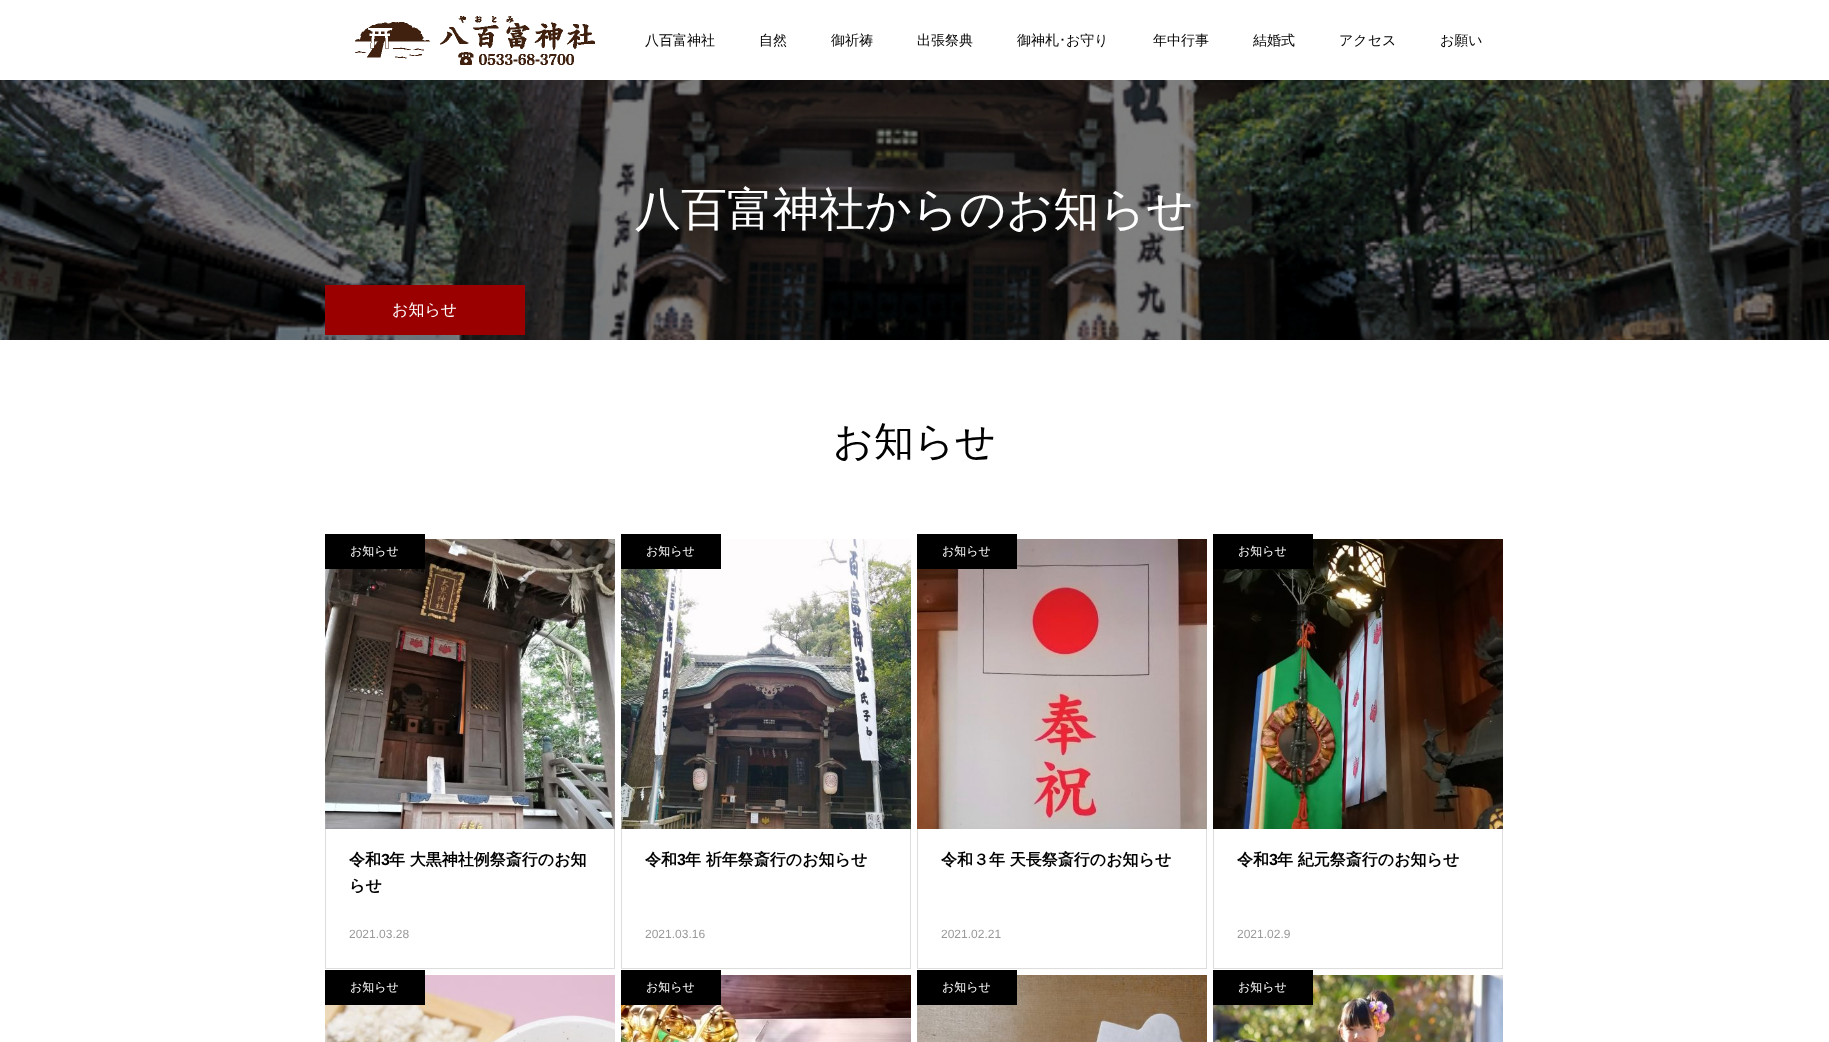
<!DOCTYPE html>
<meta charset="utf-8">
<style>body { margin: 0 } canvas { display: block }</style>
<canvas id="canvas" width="1829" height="1042"></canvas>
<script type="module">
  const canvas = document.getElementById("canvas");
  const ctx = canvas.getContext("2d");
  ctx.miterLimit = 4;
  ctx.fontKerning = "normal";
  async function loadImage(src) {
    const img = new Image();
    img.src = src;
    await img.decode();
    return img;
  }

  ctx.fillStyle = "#ffffff";
  ctx.fillRect(0, 0, 1829, 1042);
  ctx.drawImage(await loadImage("img1.png"), 355, 16, 240, 49);
  ctx.font = "500 14px WenQuanYi Zen Hei";
  ctx.fillStyle = "#000000";
  ctx.fillText("八百富神社", 645, 45);
  ctx.fillText("自然", 759, 45);
  ctx.fillText("御祈祷", 831, 45);
  ctx.fillText("出張祭典", 917, 45);
  ctx.fillText("御神札", 1017, 45);
  ctx.font = "14px IPAPGothic";
  ctx.fillText("･", 1059, 45);
  ctx.font = "500 14px WenQuanYi Zen Hei";
  ctx.fillText("お守り", 1066, 45);
  ctx.fillText("年中行事", 1153, 45);
  ctx.fillText("結婚式", 1253, 45);
  ctx.fillText("アクセス", 1339, 45);
  ctx.fillText("お願い", 1440, 45);
  ctx.drawImage(await loadImage("img2.png"), 0, 80, 1829, 260);
  ctx.font = "500 46px WenQuanYi Zen Hei";
  ctx.fillStyle = "#ffffff";
  ctx.fillText("八百富神社からのお知らせ", 635, 225);
  ctx.fillStyle = "#9a0000";
  ctx.fillRect(325, 285, 200, 50);
  ctx.font = "500 16px WenQuanYi Zen Hei";
  ctx.fillStyle = "#ffffff";
  ctx.fillText("お知らせ", 392, 315);
  ctx.font = "500 40px WenQuanYi Zen Hei";
  ctx.fillStyle = "#000000";
  ctx.fillText("お知らせ", 833, 455);
  ctx.drawImage(await loadImage("img3.png"), 325, 539, 290, 290);
  ctx.fillRect(325, 534, 100, 35);
  ctx.font = "500 12px WenQuanYi Zen Hei";
  ctx.fillStyle = "#ffffff";
  ctx.fillText("お知らせ", 350, 555);
  ctx.fillStyle = "#dddddd";
  ctx.fillRect(614, 829, 1, 140);
  ctx.fillRect(325, 968, 290, 1);
  ctx.fillRect(325, 829, 1, 140);
  ctx.font = "bold 16px WenQuanYi Zen Hei";
  ctx.fillStyle = "#000000";
  ctx.fillText("令和", 349, 865);
  ctx.font = "bold 16px Liberation Sans";
  ctx.fillText("3", 381, 865);
  ctx.font = "bold 16px WenQuanYi Zen Hei";
  ctx.fillText("年 大黒神社例祭斎行のお知", 389, 865);
  ctx.fillText("らせ", 349, 891);
  ctx.font = "12px Liberation Sans";
  ctx.fillStyle = "#999999";
  ctx.fillText("2021.03.28", 349, 938);
  ctx.drawImage(await loadImage("img4.png"), 621, 539, 290, 290);
  ctx.fillStyle = "#000000";
  ctx.fillRect(621, 534, 100, 35);
  ctx.font = "500 12px WenQuanYi Zen Hei";
  ctx.fillStyle = "#ffffff";
  ctx.fillText("お知らせ", 646, 555);
  ctx.fillStyle = "#dddddd";
  ctx.fillRect(910, 829, 1, 140);
  ctx.fillRect(621, 968, 290, 1);
  ctx.fillRect(621, 829, 1, 140);
  ctx.font = "bold 16px WenQuanYi Zen Hei";
  ctx.fillStyle = "#000000";
  ctx.fillText("令和", 645, 865);
  ctx.font = "bold 16px Liberation Sans";
  ctx.fillText("3", 677, 865);
  ctx.font = "bold 16px WenQuanYi Zen Hei";
  ctx.fillText("年 祈年祭斎行のお知らせ", 685, 865);
  ctx.font = "12px Liberation Sans";
  ctx.fillStyle = "#999999";
  ctx.fillText("2021.03.16", 645, 938);
  ctx.drawImage(await loadImage("img5.png"), 917, 539, 290, 290);
  ctx.fillStyle = "#000000";
  ctx.fillRect(917, 534, 100, 35);
  ctx.font = "500 12px WenQuanYi Zen Hei";
  ctx.fillStyle = "#ffffff";
  ctx.fillText("お知らせ", 942, 555);
  ctx.fillStyle = "#dddddd";
  ctx.fillRect(1206, 829, 1, 140);
  ctx.fillRect(917, 968, 290, 1);
  ctx.fillRect(917, 829, 1, 140);
  ctx.font = "bold 16px WenQuanYi Zen Hei";
  ctx.fillStyle = "#000000";
  ctx.fillText("令和３年 天長祭斎行のお知らせ", 941, 865);
  ctx.font = "12px Liberation Sans";
  ctx.fillStyle = "#999999";
  ctx.fillText("2021.02.21", 941, 938);
  ctx.drawImage(await loadImage("img6.png"), 1213, 539, 290, 290);
  ctx.fillStyle = "#000000";
  ctx.fillRect(1213, 534, 100, 35);
  ctx.font = "500 12px WenQuanYi Zen Hei";
  ctx.fillStyle = "#ffffff";
  ctx.fillText("お知らせ", 1238, 555);
  ctx.fillStyle = "#dddddd";
  ctx.fillRect(1502, 829, 1, 140);
  ctx.fillRect(1213, 968, 290, 1);
  ctx.fillRect(1213, 829, 1, 140);
  ctx.font = "bold 16px WenQuanYi Zen Hei";
  ctx.fillStyle = "#000000";
  ctx.fillText("令和", 1237, 865);
  ctx.font = "bold 16px Liberation Sans";
  ctx.fillText("3", 1269, 865);
  ctx.font = "bold 16px WenQuanYi Zen Hei";
  ctx.fillText("年 紀元祭斎行のお知らせ", 1277, 865);
  ctx.font = "12px Liberation Sans";
  ctx.fillStyle = "#999999";
  ctx.fillText("2021.02.9", 1237, 938);
  ctx.drawImage(await loadImage("img7.png"), 325, 975, 290, 67);
  ctx.fillStyle = "#000000";
  ctx.fillRect(325, 970, 100, 35);
  ctx.font = "500 12px WenQuanYi Zen Hei";
  ctx.fillStyle = "#ffffff";
  ctx.fillText("お知らせ", 350, 991);
  ctx.drawImage(await loadImage("img8.png"), 621, 975, 290, 67);
  ctx.fillStyle = "#000000";
  ctx.fillRect(621, 970, 100, 35);
  ctx.fillStyle = "#ffffff";
  ctx.fillText("お知らせ", 646, 991);
  ctx.drawImage(await loadImage("img9.png"), 917, 975, 290, 67);
  ctx.fillStyle = "#000000";
  ctx.fillRect(917, 970, 100, 35);
  ctx.fillStyle = "#ffffff";
  ctx.fillText("お知らせ", 942, 991);
  ctx.drawImage(await loadImage("img10.png"), 1213, 975, 290, 67);
  ctx.fillStyle = "#000000";
  ctx.fillRect(1213, 970, 100, 35);
  ctx.fillStyle = "#ffffff";
  ctx.fillText("お知らせ", 1238, 991);
</script>
